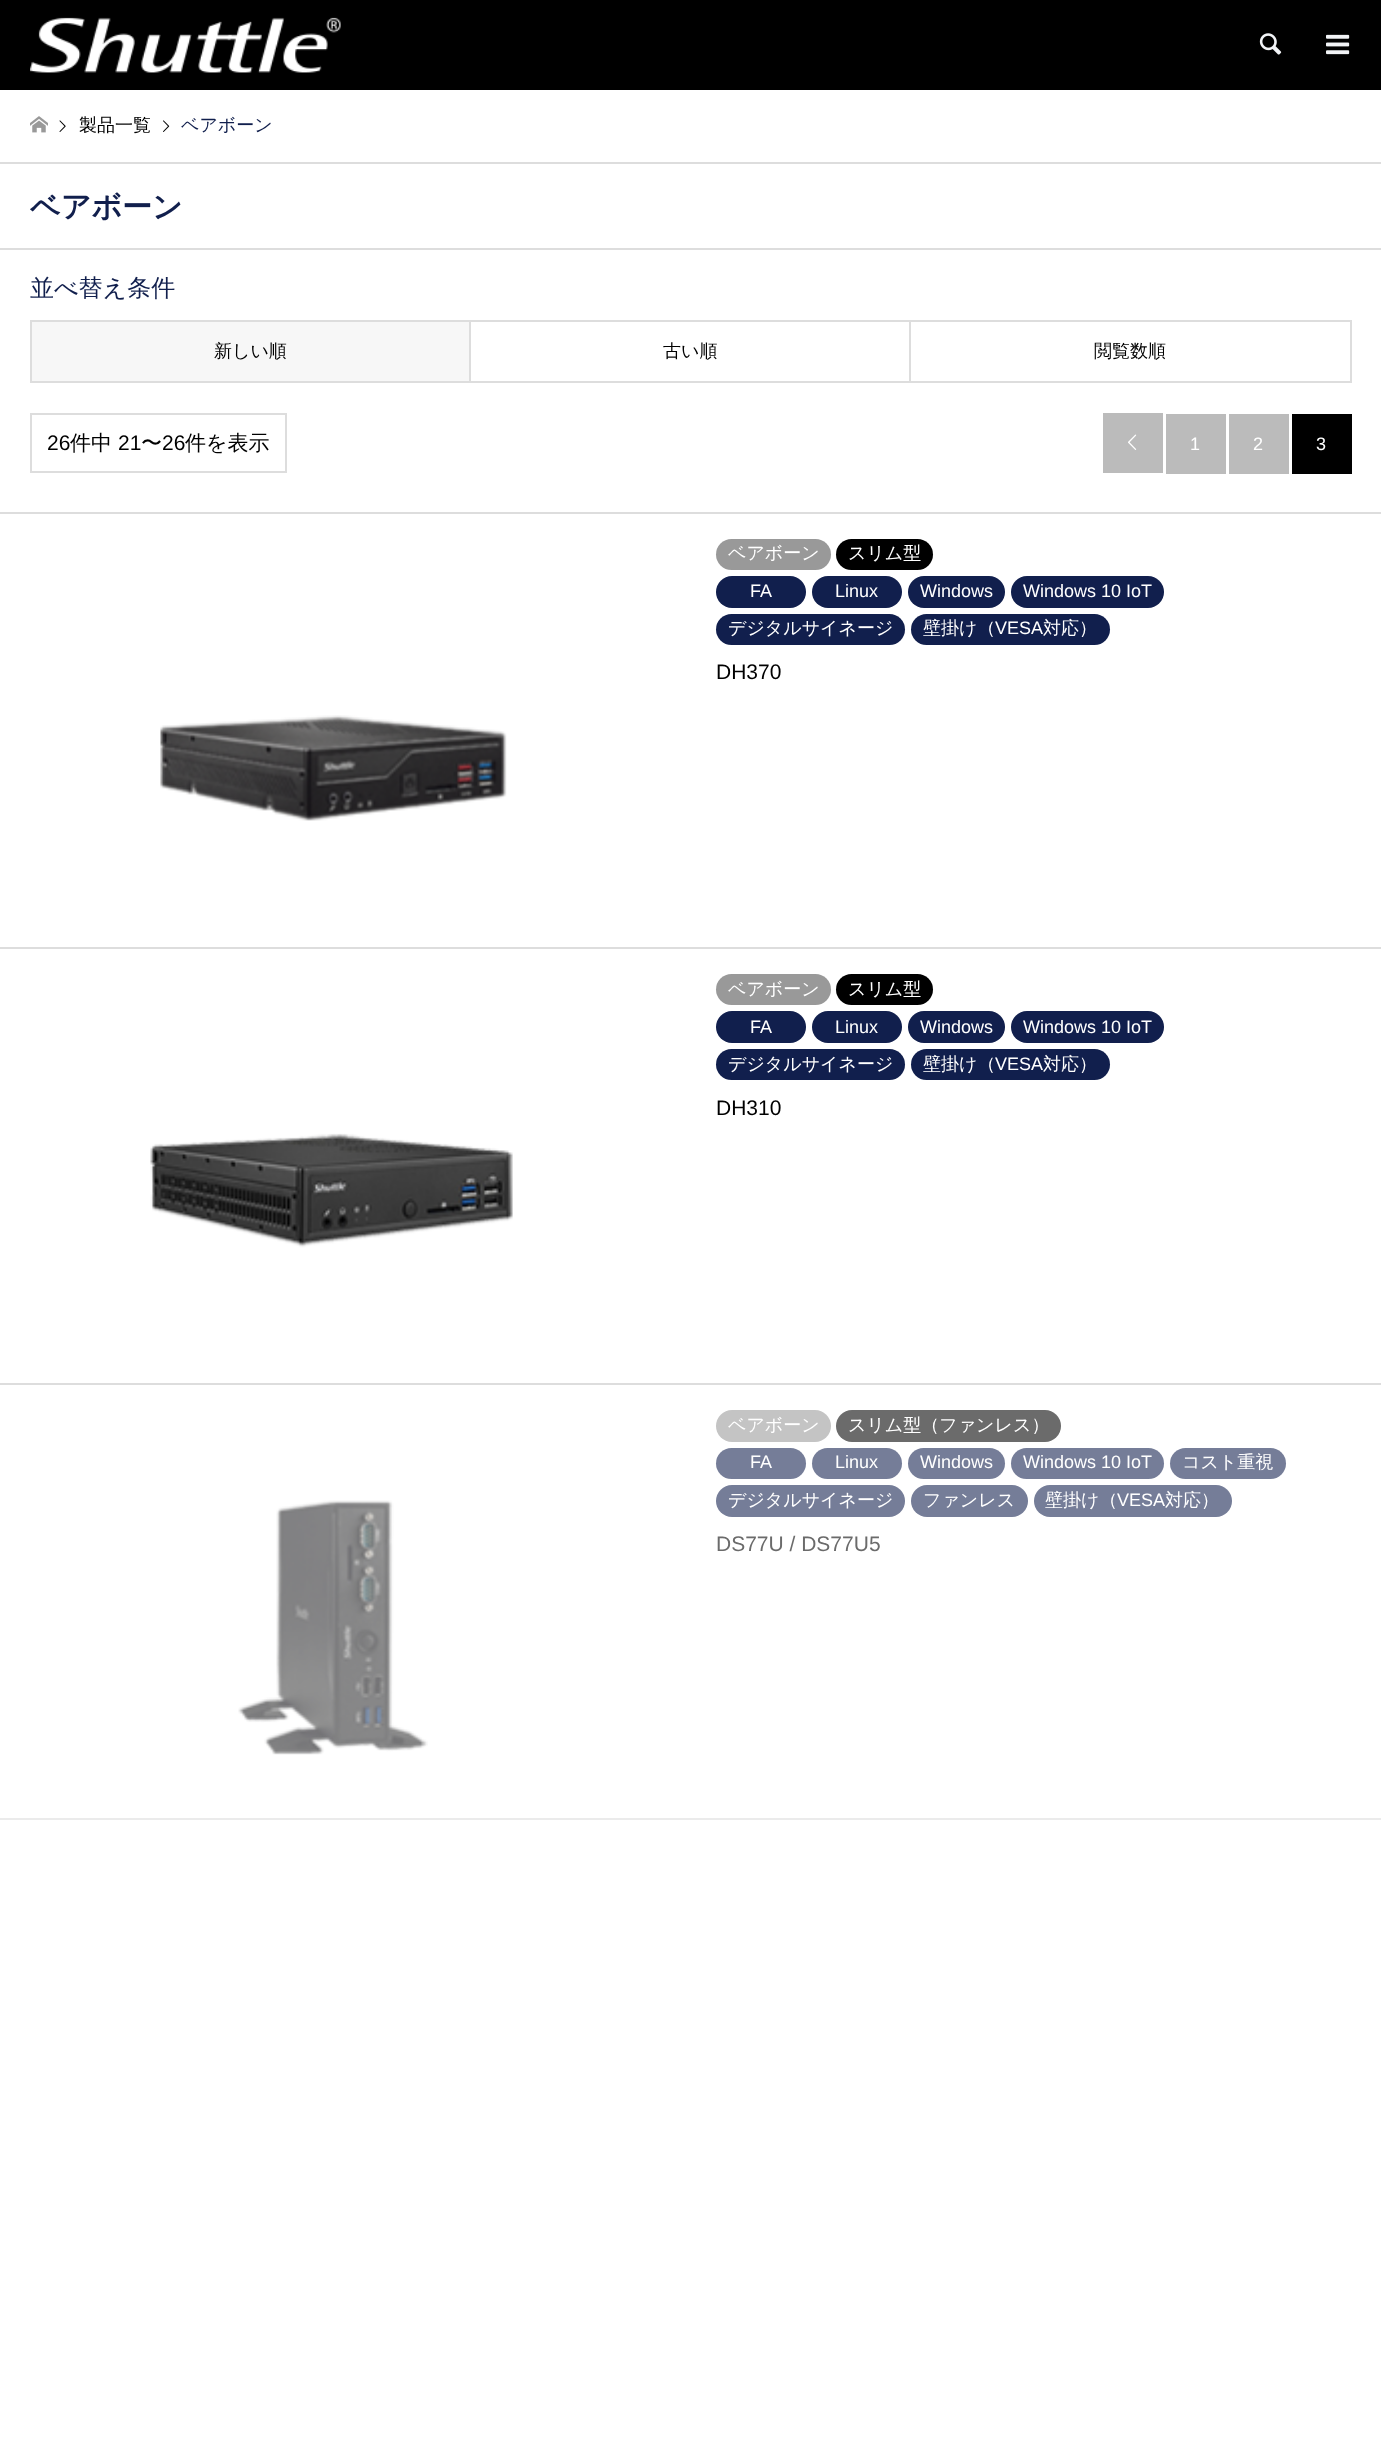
<!DOCTYPE html>
<meta charset="utf-8">
<style>body { margin: 0 } canvas { display: block }</style>
<canvas id="canvas" width="1381" height="2441"></canvas>
<script type="module">
  const canvas = document.getElementById("canvas");
  const ctx = canvas.getContext("2d");
  ctx.miterLimit = 4;
  ctx.fontKerning = "normal";
  async function loadImage(src) {
    const img = new Image();
    img.src = src;
    await img.decode();
    return img;
  }

  ctx.fillStyle = "#ffffff";
  ctx.fillRect(0, 0, 1381, 2441);
  ctx.fillStyle = "#000000";
  ctx.fillRect(0, 0, 1381, 90);
  ctx.drawImage(await loadImage("img1.png"), 30, 17, 311, 56);
  ctx.drawImage(await loadImage("img2.png"), 1259, 33, 23, 22);
  ctx.drawImage(await loadImage("img3.png"), 1326, 34, 24, 21);
  ctx.fillStyle = "#dddddd";
  ctx.fillRect(0, 162, 1381, 2);
  ctx.drawImage(await loadImage("img4.png"), 30, 116, 18, 17);
  ctx.drawImage(await loadImage("img5.png"), 59, 120, 7, 12);
  ctx.font = "500 18px WenQuanYi Zen Hei";
  ctx.fillStyle = "#000000";
  ctx.fillText("製品一覧", 79, 131);
  ctx.drawImage(await loadImage("img6.png"), 163, 120, 7, 12);
  ctx.fillStyle = "#111f4d";
  ctx.fillText("ベアボーン", 181, 131);
  ctx.fillStyle = "#dddddd";
  ctx.fillRect(0, 248, 1381, 2);
  ctx.font = "bold 30px WenQuanYi Zen Hei";
  ctx.fillStyle = "#111f4d";
  ctx.fillText("ベアボーン", 30, 217);
  ctx.font = "500 24px WenQuanYi Zen Hei";
  ctx.fillText("並べ替え条件", 30, 296);
  ctx.fillStyle = "#f7f7f7";
  ctx.beginPath();
  ctx.rect(31, 321, 439, 61);
  ctx.fill();
  ctx.strokeStyle = "#dddddd";
  ctx.lineWidth = 2;
  ctx.stroke();
  ctx.font = "500 18px WenQuanYi Zen Hei";
  ctx.fillStyle = "#000000";
  ctx.fillText("新しい順", 214, 357);
  ctx.fillStyle = "#dddddd";
  ctx.fillRect(471, 320, 881, 2);
  ctx.fillRect(909, 320, 2, 63);
  ctx.fillRect(471, 381, 440, 2);
  ctx.fillStyle = "#000000";
  ctx.fillText("古い順", 663, 357);
  ctx.fillStyle = "#dddddd";
  ctx.fillRect(1350, 320, 2, 63);
  ctx.fillRect(911, 381, 441, 2);
  ctx.fillStyle = "#000000";
  ctx.fillText("閲覧数順", 1094, 357);
  ctx.strokeRect(31, 414, 255, 58);
  ctx.font = "21px Liberation Sans";
  ctx.fillText("26", 47, 450);
  ctx.font = "500 21px WenQuanYi Zen Hei";
  ctx.fillText("件中", 70, 450);
  ctx.font = "21px Liberation Sans";
  ctx.fillText("21", 118, 450);
  ctx.font = "500 21px WenQuanYi Zen Hei";
  ctx.fillText("〜", 141, 450);
  ctx.font = "21px Liberation Sans";
  ctx.fillText("26", 162, 450);
  ctx.font = "500 21px WenQuanYi Zen Hei";
  ctx.fillText("件を表示", 185, 450);
  ctx.fillStyle = "#bbbbbb";
  ctx.fillRect(1103, 413, 60, 60);
  ctx.drawImage(await loadImage("img7.png"), 1128, 434, 9, 16);
  ctx.fillRect(1166, 414, 60, 60);
  ctx.font = "18px Liberation Sans";
  ctx.fillStyle = "#ffffff";
  ctx.fillText("1", 1190, 450);
  ctx.fillStyle = "#bbbbbb";
  ctx.fillRect(1229, 414, 60, 60);
  ctx.fillStyle = "#ffffff";
  ctx.fillText("2", 1253, 450);
  ctx.fillStyle = "#000000";
  ctx.fillRect(1292, 414, 60, 60);
  ctx.fillStyle = "#ffffff";
  ctx.fillText("3", 1316, 450);
  ctx.fillStyle = "#dddddd";
  ctx.fillRect(0, 512, 1381, 2);
  ctx.fillRect(0, 947, 1381, 2);
  ctx.fillStyle = "#999999";
  ctx.beginPath();
  ctx.roundRect(716, 539, 115, 31, 15.5);
  ctx.fill();
  ctx.font = "500 18px WenQuanYi Zen Hei";
  ctx.fillStyle = "#ffffff";
  ctx.fillText("ベアボーン", 728, 559);
  ctx.fillStyle = "#000000";
  ctx.beginPath();
  ctx.roundRect(836, 539, 97, 31, 15.5);
  ctx.fill();
  ctx.fillStyle = "#ffffff";
  ctx.fillText("スリム型", 848, 559);
  ctx.fillStyle = "#111f4d";
  ctx.beginPath();
  ctx.roundRect(716, 576, 90, 32, 16);
  ctx.fill();
  ctx.font = "18px Liberation Sans";
  ctx.fillStyle = "#ffffff";
  ctx.fillText("FA", 750, 597);
  ctx.fillStyle = "#111f4d";
  ctx.beginPath();
  ctx.roundRect(812, 576, 90, 32, 16);
  ctx.fill();
  ctx.fillStyle = "#ffffff";
  ctx.fillText("Linux", 835, 597);
  ctx.fillStyle = "#111f4d";
  ctx.beginPath();
  ctx.roundRect(908, 576, 97, 32, 16);
  ctx.fill();
  ctx.fillStyle = "#ffffff";
  ctx.fillText("Windows", 920, 597);
  ctx.fillStyle = "#111f4d";
  ctx.beginPath();
  ctx.roundRect(1011, 576, 153, 32, 16);
  ctx.fill();
  ctx.fillStyle = "#ffffff";
  ctx.fillText("Windows 10 IoT", 1023, 597);
  ctx.fillStyle = "#111f4d";
  ctx.beginPath();
  ctx.roundRect(716, 614, 189, 31, 15.5);
  ctx.fill();
  ctx.font = "500 18px WenQuanYi Zen Hei";
  ctx.fillStyle = "#ffffff";
  ctx.fillText("デジタルサイネージ", 728, 634);
  ctx.fillStyle = "#111f4d";
  ctx.beginPath();
  ctx.roundRect(911, 614, 199, 31, 15.5);
  ctx.fill();
  ctx.fillStyle = "#ffffff";
  ctx.fillText("壁掛け（", 923, 634);
  ctx.font = "18px Liberation Sans";
  ctx.fillText("VESA", 995, 634);
  ctx.font = "500 18px WenQuanYi Zen Hei";
  ctx.fillText("対応）", 1043, 634);
  ctx.font = "21px Liberation Sans";
  ctx.fillStyle = "#000000";
  ctx.fillText("DH370", 716, 679);
  ctx.drawImage(await loadImage("img8.png"), 160, 715, 347, 106);
  ctx.fillStyle = "#dddddd";
  ctx.fillRect(0, 1383, 1381, 2);
  ctx.fillStyle = "#999999";
  ctx.beginPath();
  ctx.roundRect(716, 974, 115, 31, 15.5);
  ctx.fill();
  ctx.font = "500 18px WenQuanYi Zen Hei";
  ctx.fillStyle = "#ffffff";
  ctx.fillText("ベアボーン", 728, 995);
  ctx.fillStyle = "#000000";
  ctx.beginPath();
  ctx.roundRect(836, 974, 97, 31, 15.5);
  ctx.fill();
  ctx.fillStyle = "#ffffff";
  ctx.fillText("スリム型", 848, 995);
  ctx.fillStyle = "#111f4d";
  ctx.beginPath();
  ctx.roundRect(716, 1011, 90, 32, 16);
  ctx.fill();
  ctx.font = "18px Liberation Sans";
  ctx.fillStyle = "#ffffff";
  ctx.fillText("FA", 750, 1033);
  ctx.fillStyle = "#111f4d";
  ctx.beginPath();
  ctx.roundRect(812, 1011, 90, 32, 16);
  ctx.fill();
  ctx.fillStyle = "#ffffff";
  ctx.fillText("Linux", 835, 1033);
  ctx.fillStyle = "#111f4d";
  ctx.beginPath();
  ctx.roundRect(908, 1011, 97, 32, 16);
  ctx.fill();
  ctx.fillStyle = "#ffffff";
  ctx.fillText("Windows", 920, 1033);
  ctx.fillStyle = "#111f4d";
  ctx.beginPath();
  ctx.roundRect(1011, 1011, 153, 32, 16);
  ctx.fill();
  ctx.fillStyle = "#ffffff";
  ctx.fillText("Windows 10 IoT", 1023, 1033);
  ctx.fillStyle = "#111f4d";
  ctx.beginPath();
  ctx.roundRect(716, 1049, 189, 31, 15.5);
  ctx.fill();
  ctx.font = "500 18px WenQuanYi Zen Hei";
  ctx.fillStyle = "#ffffff";
  ctx.fillText("デジタルサイネージ", 728, 1070);
  ctx.fillStyle = "#111f4d";
  ctx.beginPath();
  ctx.roundRect(911, 1049, 199, 31, 15.5);
  ctx.fill();
  ctx.fillStyle = "#ffffff";
  ctx.fillText("壁掛け（", 923, 1070);
  ctx.font = "18px Liberation Sans";
  ctx.fillText("VESA", 995, 1070);
  ctx.font = "500 18px WenQuanYi Zen Hei";
  ctx.fillText("対応）", 1043, 1070);
  ctx.font = "21px Liberation Sans";
  ctx.fillStyle = "#000000";
  ctx.fillText("DH310", 716, 1115);
  ctx.drawImage(await loadImage("img9.png"), 150, 1133, 363, 115);
  ctx.fillStyle = "#ebebeb";
  ctx.fillRect(0, 1818, 1381, 2);
  ctx.fillStyle = "#c4c4c4";
  ctx.beginPath();
  ctx.roundRect(716, 1410, 115, 32, 16);
  ctx.fill();
  ctx.font = "500 18px WenQuanYi Zen Hei";
  ctx.fillStyle = "#ffffff";
  ctx.fillText("ベアボーン", 728, 1431);
  ctx.fillStyle = "#6b6b6b";
  ctx.beginPath();
  ctx.roundRect(836, 1410, 225, 32, 16);
  ctx.fill();
  ctx.fillStyle = "#ffffff";
  ctx.fillText("スリム型（ファンレス）", 848, 1431);
  ctx.fillStyle = "#757d98";
  ctx.beginPath();
  ctx.roundRect(716, 1448, 90, 31, 15.5);
  ctx.fill();
  ctx.font = "18px Liberation Sans";
  ctx.fillStyle = "#ffffff";
  ctx.fillText("FA", 750, 1468);
  ctx.fillStyle = "#757d98";
  ctx.beginPath();
  ctx.roundRect(812, 1448, 90, 31, 15.5);
  ctx.fill();
  ctx.fillStyle = "#ffffff";
  ctx.fillText("Linux", 835, 1468);
  ctx.fillStyle = "#757d98";
  ctx.beginPath();
  ctx.roundRect(908, 1448, 97, 31, 15.5);
  ctx.fill();
  ctx.fillStyle = "#ffffff";
  ctx.fillText("Windows", 920, 1468);
  ctx.fillStyle = "#757d98";
  ctx.beginPath();
  ctx.roundRect(1011, 1448, 153, 31, 15.5);
  ctx.fill();
  ctx.fillStyle = "#ffffff";
  ctx.fillText("Windows 10 IoT", 1023, 1468);
  ctx.fillStyle = "#757d98";
  ctx.beginPath();
  ctx.roundRect(1170, 1448, 116, 31, 15.5);
  ctx.fill();
  ctx.font = "500 18px WenQuanYi Zen Hei";
  ctx.fillStyle = "#ffffff";
  ctx.fillText("コスト重視", 1182, 1468);
  ctx.fillStyle = "#757d98";
  ctx.beginPath();
  ctx.roundRect(716, 1485, 189, 32, 16);
  ctx.fill();
  ctx.fillStyle = "#ffffff";
  ctx.fillText("デジタルサイネージ", 728, 1506);
  ctx.fillStyle = "#757d98";
  ctx.beginPath();
  ctx.roundRect(911, 1485, 117, 32, 16);
  ctx.fill();
  ctx.fillStyle = "#ffffff";
  ctx.fillText("ファンレス", 923, 1506);
  ctx.fillStyle = "#757d98";
  ctx.beginPath();
  ctx.roundRect(1034, 1485, 198, 32, 16);
  ctx.fill();
  ctx.fillStyle = "#ffffff";
  ctx.fillText("壁掛け（", 1045, 1506);
  ctx.font = "18px Liberation Sans";
  ctx.fillText("VESA", 1117, 1506);
  ctx.font = "500 18px WenQuanYi Zen Hei";
  ctx.fillText("対応）", 1165, 1506);
  ctx.font = "21px Liberation Sans";
  ctx.fillStyle = "#6b6b6b";
  ctx.fillText("DS77U / DS77U5", 716, 1551);
  ctx.drawImage(await loadImage("img10.png"), 238, 1500, 190, 255);
</script>
